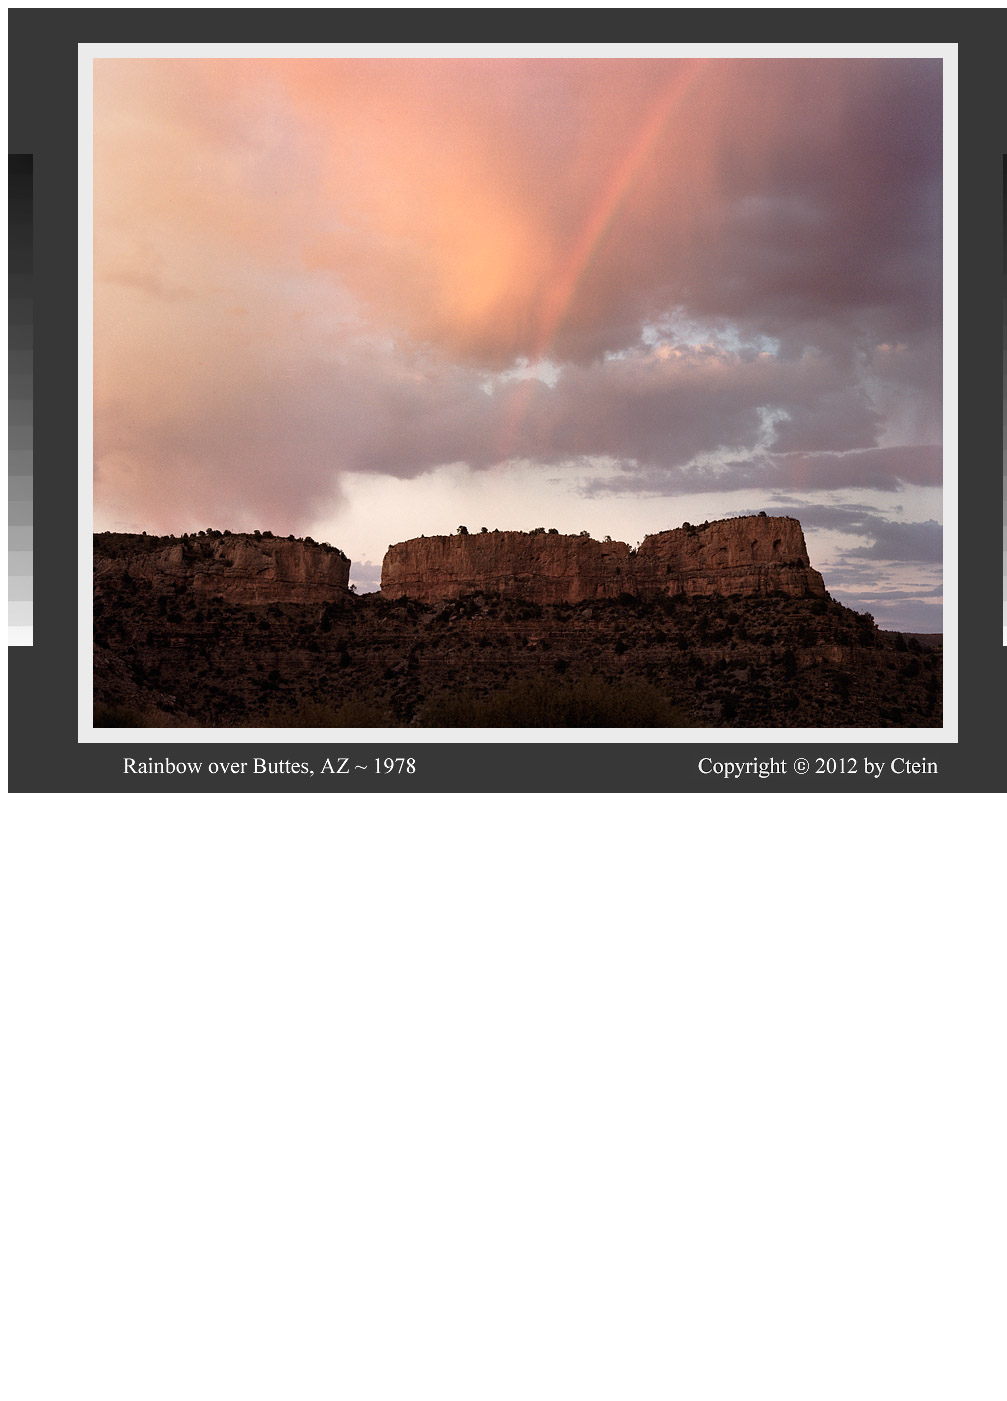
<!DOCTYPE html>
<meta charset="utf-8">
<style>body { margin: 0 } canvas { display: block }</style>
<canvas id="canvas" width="1007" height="1401"></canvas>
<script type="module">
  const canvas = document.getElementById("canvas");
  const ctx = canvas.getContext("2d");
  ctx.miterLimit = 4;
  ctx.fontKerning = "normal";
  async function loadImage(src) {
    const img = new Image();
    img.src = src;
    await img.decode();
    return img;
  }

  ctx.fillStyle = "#ffffff";
  ctx.fillRect(0, 0, 1007, 1401);
  ctx.drawImage(await loadImage("img1.png"), 8, 8, 999, 785);
</script>
